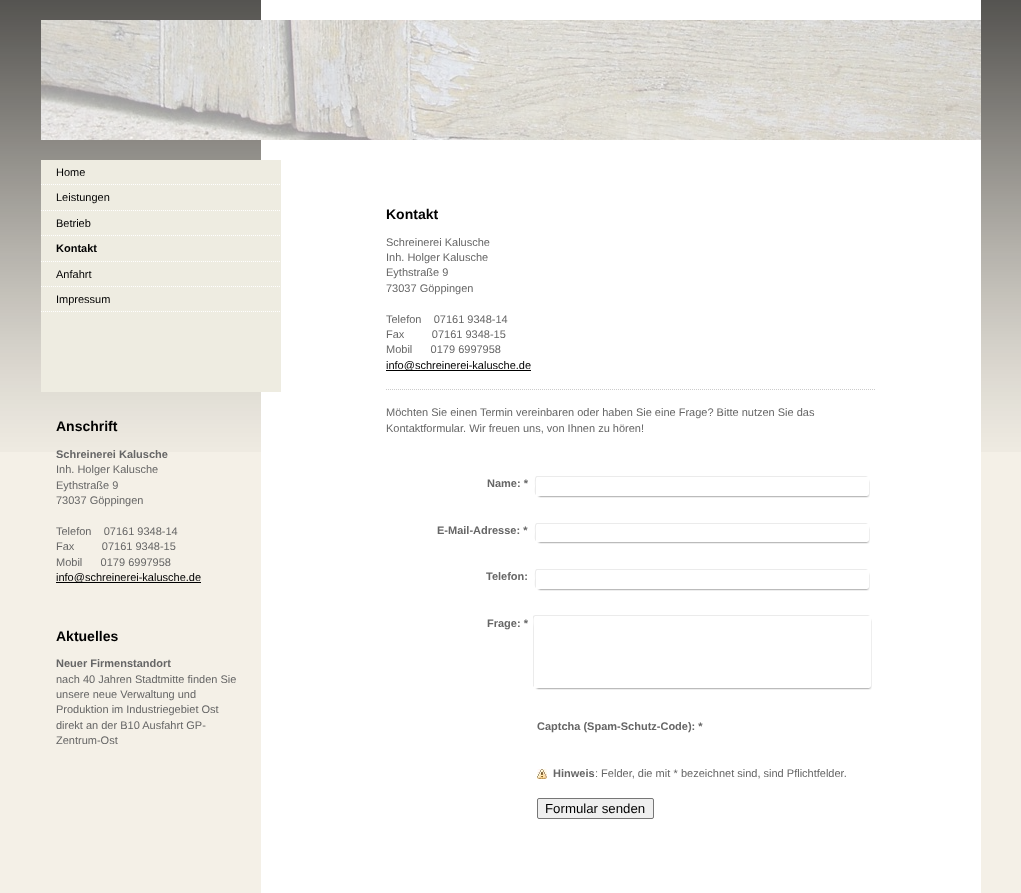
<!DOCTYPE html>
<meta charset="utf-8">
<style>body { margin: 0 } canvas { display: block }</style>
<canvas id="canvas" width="1021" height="893"></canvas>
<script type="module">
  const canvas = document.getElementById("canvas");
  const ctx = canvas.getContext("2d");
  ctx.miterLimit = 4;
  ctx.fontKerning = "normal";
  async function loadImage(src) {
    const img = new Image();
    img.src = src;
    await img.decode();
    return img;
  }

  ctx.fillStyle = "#f4f0e7";
  ctx.fillRect(0, 0, 1021, 893);
  ctx.drawImage(await loadImage("img1.png"), 0, 0, 1021, 452);
  ctx.fillStyle = "#ffffff";
  ctx.fillRect(261, 0, 720, 893);
  ctx.drawImage(await loadImage("img2.png"), 41, 20, 940, 120);
  ctx.fillStyle = "#eeece1";
  ctx.fillRect(41, 160, 240, 232);
  ctx.drawImage(await loadImage("img3.png"), 41, 184, 239, 1);
  ctx.font = "11px Liberation Sans";
  ctx.fillStyle = "#000000";
  ctx.fillText("Home", 56, 176);
  ctx.drawImage(await loadImage("img3.png"), 41, 210, 239, 1);
  ctx.fillText("Leistungen", 56, 201);
  ctx.drawImage(await loadImage("img3.png"), 41, 235, 239, 1);
  ctx.fillText("Betrieb", 56, 227);
  ctx.drawImage(await loadImage("img3.png"), 41, 261, 239, 1);
  ctx.font = "bold 11px Liberation Sans";
  ctx.fillText("Kontakt", 56, 252);
  ctx.drawImage(await loadImage("img3.png"), 41, 286, 239, 1);
  ctx.font = "11px Liberation Sans";
  ctx.fillText("Anfahrt", 56, 278);
  ctx.drawImage(await loadImage("img3.png"), 41, 311, 239, 1);
  ctx.fillText("Impressum", 56, 303);
  ctx.font = "bold 14px Liberation Sans";
  ctx.fillText("Anschrift", 56, 431);
  ctx.font = "bold 11px Liberation Sans";
  ctx.fillStyle = "#666666";
  ctx.fillText("Schreinerei Kalusche", 56, 458);
  ctx.font = "11px Liberation Sans";
  ctx.fillText("Inh. Holger Kalusche", 56, 473);
  ctx.fillText("Eythstraße 9", 56, 489);
  ctx.fillText("73037 Göppingen", 56, 504);
  ctx.fillText("Telefon    07161 9348-14", 56, 535);
  ctx.fillText("Fax         07161 9348-15", 56, 550);
  ctx.fillText("Mobil      0179 6997958", 56, 566);
  ctx.fillStyle = "#000000";
  ctx.fillRect(56, 582, 145, 1);
  ctx.fillText("info@schreinerei-kalusche.de", 56, 581);
  ctx.font = "bold 14px Liberation Sans";
  ctx.fillText("Aktuelles", 56, 641);
  ctx.font = "bold 11px Liberation Sans";
  ctx.fillStyle = "#666666";
  ctx.fillText("Neuer Firmenstandort", 56, 667);
  ctx.font = "11px Liberation Sans";
  ctx.fillText("nach 40 Jahren Stadtmitte finden Sie", 56, 683);
  ctx.fillText("unsere neue Verwaltung und", 56, 698);
  ctx.fillText("Produktion im Industriegebiet Ost", 56, 713);
  ctx.fillText("direkt an der B10 Ausfahrt GP-", 56, 729);
  ctx.fillText("Zentrum-Ost", 56, 744);
  ctx.font = "bold 14px Liberation Sans";
  ctx.fillStyle = "#000000";
  ctx.fillText("Kontakt", 386, 219);
  ctx.font = "11px Liberation Sans";
  ctx.fillStyle = "#666666";
  ctx.fillText("Schreinerei Kalusche", 386, 246);
  ctx.fillText("Inh. Holger Kalusche", 386, 261);
  ctx.fillText("Eythstraße 9", 386, 276);
  ctx.fillText("73037 Göppingen", 386, 292);
  ctx.fillText("Telefon    07161 9348-14", 386, 323);
  ctx.fillText("Fax         07161 9348-15", 386, 338);
  ctx.fillText("Mobil      0179 6997958", 386, 353);
  ctx.fillStyle = "#000000";
  ctx.fillRect(386, 370, 145, 1);
  ctx.fillText("info@schreinerei-kalusche.de", 386, 369);
  ctx.beginPath();
  ctx.moveTo(386, 389.5);
  ctx.lineTo(876, 389.5);
  ctx.strokeStyle = "#cccccc";
  ctx.setLineDash([1, 1]);
  ctx.stroke();
  ctx.fillStyle = "#666666";
  ctx.fillText("Möchten Sie einen Termin vereinbaren oder haben Sie eine Frage? Bitte nutzen Sie das", 386, 416);
  ctx.fillText("Kontaktformular. Wir freuen uns, von Ihnen zu hören!", 386, 432);
  ctx.fillStyle = "#ebebeb";
  ctx.beginPath();
  ctx.moveTo(537, 476);
  ctx.bezierCurveTo(534, 476, 535, 484, 535, 486);
  ctx.bezierCurveTo(535, 487, 534, 494, 536, 495);
  ctx.lineTo(536, 486);
  ctx.bezierCurveTo(536, 485, 535, 477, 538, 477);
  ctx.lineTo(868, 477);
  ctx.lineTo(866, 476);
  ctx.closePath();
  ctx.fill();
  ctx.fillStyle = "rgba(0, 0, 0, 0.8)";
  ctx.filter = "blur(1px)";
  ctx.beginPath();
  ctx.rect(539, 481, 329, 15);
  ctx.fill();
  ctx.filter = "none";
  ctx.font = "bold 11px Liberation Sans";
  ctx.fillStyle = "#666666";
  ctx.fillText("Name: *", 487, 487);
  ctx.fillStyle = "#ffffff";
  ctx.beginPath();
  ctx.roundRect(536, 477, 333, 19, 2);
  ctx.fill();
  ctx.fillStyle = "#ebebeb";
  ctx.beginPath();
  ctx.moveTo(537, 523);
  ctx.bezierCurveTo(534, 523, 535, 530, 535, 532);
  ctx.bezierCurveTo(535, 534, 534, 540, 536, 541);
  ctx.lineTo(536, 533);
  ctx.bezierCurveTo(536, 531, 535, 524, 538, 524);
  ctx.lineTo(868, 524);
  ctx.lineTo(866, 523);
  ctx.closePath();
  ctx.fill();
  ctx.fillStyle = "rgba(0, 0, 0, 0.8)";
  ctx.filter = "blur(1px)";
  ctx.beginPath();
  ctx.rect(539, 528, 329, 14);
  ctx.fill();
  ctx.filter = "none";
  ctx.fillStyle = "#666666";
  ctx.fillText("E-Mail-Adresse: *", 437, 534);
  ctx.fillStyle = "#ffffff";
  ctx.beginPath();
  ctx.roundRect(536, 524, 333, 18, 2);
  ctx.fill();
  ctx.fillStyle = "#ebebeb";
  ctx.beginPath();
  ctx.moveTo(537, 569);
  ctx.bezierCurveTo(534, 569, 535, 577, 535, 578);
  ctx.bezierCurveTo(535, 580, 534, 587, 536, 588);
  ctx.lineTo(536, 580);
  ctx.bezierCurveTo(536, 578, 535, 570, 538, 570);
  ctx.lineTo(868, 570);
  ctx.lineTo(866, 569);
  ctx.closePath();
  ctx.fill();
  ctx.fillStyle = "rgba(0, 0, 0, 0.8)";
  ctx.filter = "blur(1px)";
  ctx.beginPath();
  ctx.rect(539, 574, 329, 15);
  ctx.fill();
  ctx.filter = "none";
  ctx.fillStyle = "#666666";
  ctx.fillText("Telefon:", 486, 580);
  ctx.fillStyle = "#ffffff";
  ctx.beginPath();
  ctx.roundRect(536, 570, 333, 19, 2);
  ctx.fill();
  ctx.fillStyle = "#ebebeb";
  ctx.beginPath();
  ctx.moveTo(535, 615);
  ctx.lineTo(533, 616);
  ctx.lineTo(533, 686);
  ctx.lineTo(534, 687);
  ctx.lineTo(534, 629);
  ctx.bezierCurveTo(534, 625, 532, 616, 536, 616);
  ctx.lineTo(870, 616);
  ctx.lineTo(868, 615);
  ctx.closePath();
  ctx.fill();
  ctx.fillStyle = "rgba(0, 0, 0, 0.8)";
  ctx.filter = "blur(1px)";
  ctx.beginPath();
  ctx.rect(537, 620, 333, 68);
  ctx.fill();
  ctx.filter = "none";
  ctx.fillStyle = "#666666";
  ctx.fillText("Frage: *", 487, 627);
  ctx.fillStyle = "#ffffff";
  ctx.beginPath();
  ctx.roundRect(534, 616, 337, 72, 2);
  ctx.fill();
  ctx.fillStyle = "#666666";
  ctx.fillText("Captcha (Spam-Schutz-Code): *", 537, 730);
  ctx.drawImage(await loadImage("img4.png"), 537, 769, 10, 10);
  ctx.fillText("Hinweis", 553, 777);
  ctx.font = "11px Liberation Sans";
  ctx.fillText(": Felder, die mit", 595, 777);
  ctx.font = "italic 11px Liberation Sans";
  ctx.fillText("*", 673, 777);
  ctx.font = "11px Liberation Sans";
  ctx.fillText("bezeichnet sind, sind Pflichtfelder.", 681, 777);
  ctx.fillStyle = "#efefef";
  ctx.beginPath();
  ctx.roundRect(537.5, 798.5, 116, 20, 1.5);
  ctx.fill();
  ctx.strokeStyle = "#767676";
  ctx.setLineDash([]);
  ctx.stroke();
  ctx.font = "13.25px Liberation Sans";
  ctx.fillStyle = "#000000";
  ctx.fillText("Formular senden", 545, 813);
</script>
